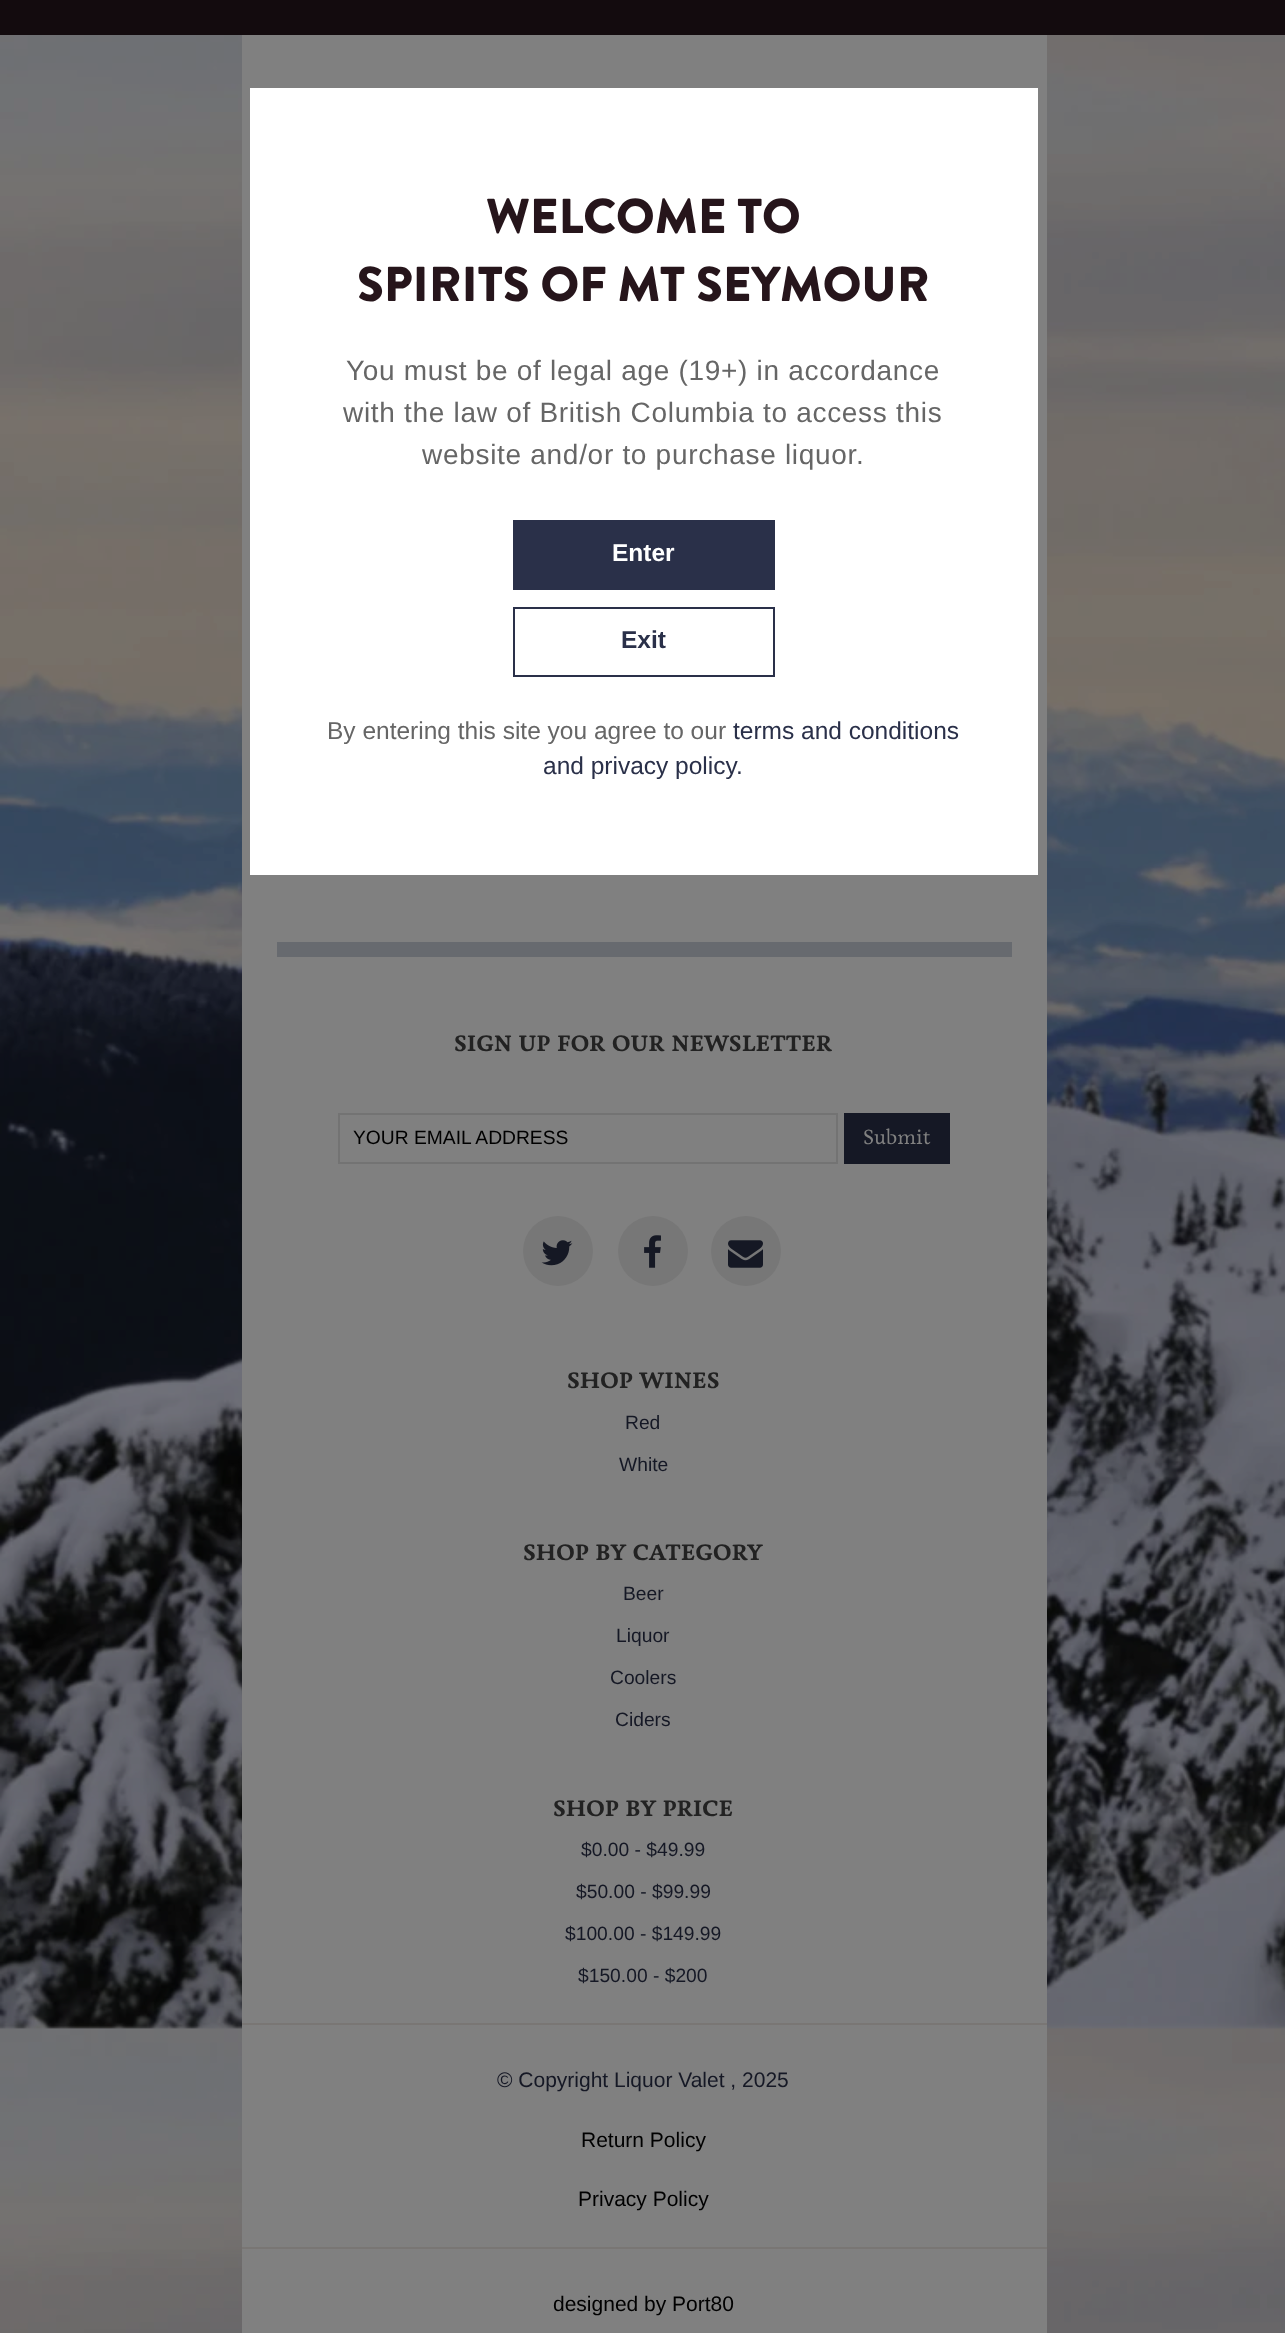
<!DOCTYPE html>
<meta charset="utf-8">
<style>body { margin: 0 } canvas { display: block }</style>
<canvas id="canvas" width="1285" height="2333"></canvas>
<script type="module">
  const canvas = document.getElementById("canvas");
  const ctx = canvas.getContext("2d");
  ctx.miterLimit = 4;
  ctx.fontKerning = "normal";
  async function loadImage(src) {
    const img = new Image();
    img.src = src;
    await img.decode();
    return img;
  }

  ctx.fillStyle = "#ffffff";
  ctx.fillRect(0, 0, 1285, 2333);
  ctx.drawImage(await loadImage("img1.png"), 0, 35, 1285, 2298);
  ctx.fillStyle = "#130b0e";
  ctx.fillRect(0, 0, 1285, 35);
  ctx.fillStyle = "#808080";
  ctx.fillRect(242, 35, 805, 2298);
  ctx.fillStyle = "#ffffff";
  ctx.fillRect(250, 88, 788, 787);
  ctx.font = "900 49px Brandon Grotesque";
  ctx.fillStyle = "#26151b";
  ctx.fillText("WELCOME TO", 486, 233);
  ctx.fillText("SPIRITS OF MT SEYMOUR", 357, 301);
  ctx.letterSpacing = "0.7px";
  ctx.font = "28px Liberation Sans";
  ctx.fillStyle = "#666666";
  ctx.fillText("You must be of legal age (19+) in accordance", 346, 380);
  ctx.fillText("with the law of British Columbia to access this", 343, 422);
  ctx.fillText("website and/or to purchase liquor.", 422, 464);
  ctx.fillStyle = "#2a3049";
  ctx.fillRect(513, 520, 262, 70);
  ctx.letterSpacing = "0px";
  ctx.font = "bold 24.5px Liberation Sans";
  ctx.fillStyle = "#ffffff";
  ctx.fillText("Enter", 612, 561);
  ctx.strokeStyle = "#2a3049";
  ctx.lineWidth = 2;
  ctx.strokeRect(514, 608, 260, 68);
  ctx.fillStyle = "#2a3049";
  ctx.fillText("Exit", 621, 648);
  ctx.font = "24.5px Liberation Sans";
  ctx.fillStyle = "#666666";
  ctx.fillText("By entering this site you agree to our", 327, 739);
  ctx.fillStyle = "#2a3049";
  ctx.fillText("terms and conditions", 733, 739);
  ctx.fillText("and privacy policy.", 543, 774);
  ctx.fillStyle = "#676a6f";
  ctx.fillRect(277, 942, 735, 15);
  ctx.font = "bold 22.75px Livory";
  ctx.fillStyle = "#222222";
  ctx.fillText("SIGN UP FOR OUR NEWSLETTER", 454, 1051);
  ctx.strokeStyle = "#737373";
  ctx.strokeRect(339, 1114, 498, 49);
  ctx.font = "19.25px Liberation Sans";
  ctx.fillStyle = "#000000";
  ctx.fillText("YOUR EMAIL ADDRESS", 353, 1144);
  ctx.fillStyle = "#151825";
  ctx.fillRect(844, 1113, 106, 51);
  ctx.font = "21px Livory";
  ctx.fillStyle = "#808080";
  ctx.fillText("Submit", 863, 1144);
  ctx.fillStyle = "#777777";
  ctx.beginPath();
  ctx.arc(558, 1251, 35, 0, Math.PI * 2);
  ctx.fill();
  ctx.drawImage(await loadImage("img2.png"), 541, 1240, 32, 26);
  ctx.beginPath();
  ctx.arc(653, 1251, 35, 0, Math.PI * 2);
  ctx.fill();
  ctx.drawImage(await loadImage("img3.png"), 644, 1235, 17, 33);
  ctx.beginPath();
  ctx.arc(746, 1251, 35, 0, Math.PI * 2);
  ctx.fill();
  ctx.drawImage(await loadImage("img4.png"), 728, 1240, 35, 28);
  ctx.font = "bold 22.75px Livory";
  ctx.fillStyle = "#222222";
  ctx.fillText("SHOP WINES", 567, 1388);
  ctx.font = "19.25px Liberation Sans";
  ctx.fillStyle = "#151825";
  ctx.fillText("Red", 625, 1429);
  ctx.fillText("White", 619, 1471);
  ctx.font = "bold 22.75px Livory";
  ctx.fillStyle = "#222222";
  ctx.fillText("SHOP BY CATEGORY", 523, 1560);
  ctx.font = "19.25px Liberation Sans";
  ctx.fillStyle = "#151825";
  ctx.fillText("Beer", 623, 1600);
  ctx.fillText("Liquor", 616, 1642);
  ctx.fillText("Coolers", 610, 1684);
  ctx.fillText("Ciders", 615, 1726);
  ctx.font = "bold 22.75px Livory";
  ctx.fillStyle = "#222222";
  ctx.fillText("SHOP BY PRICE", 553, 1816);
  ctx.font = "19.25px Liberation Sans";
  ctx.fillStyle = "#151825";
  ctx.fillText("$0.00 - $49.99", 581, 1856);
  ctx.fillText("$50.00 - $99.99", 576, 1898);
  ctx.fillText("$100.00 - $149.99", 565, 1940);
  ctx.fillText("$150.00 - $200", 578, 1982);
  ctx.fillStyle = "#797674";
  ctx.fillRect(242, 2023, 805, 2);
  ctx.font = "21px Liberation Sans";
  ctx.fillStyle = "#151825";
  ctx.fillText("© Copyright Liquor Valet , 2025", 497, 2087);
  ctx.fillStyle = "#000000";
  ctx.fillText("Return Policy", 581, 2147);
  ctx.fillText("Privacy Policy", 578, 2206);
  ctx.fillStyle = "#797674";
  ctx.fillRect(242, 2247, 805, 2);
  ctx.fillStyle = "#000000";
  ctx.fillText("designed by Port80", 553, 2311);
</script>
